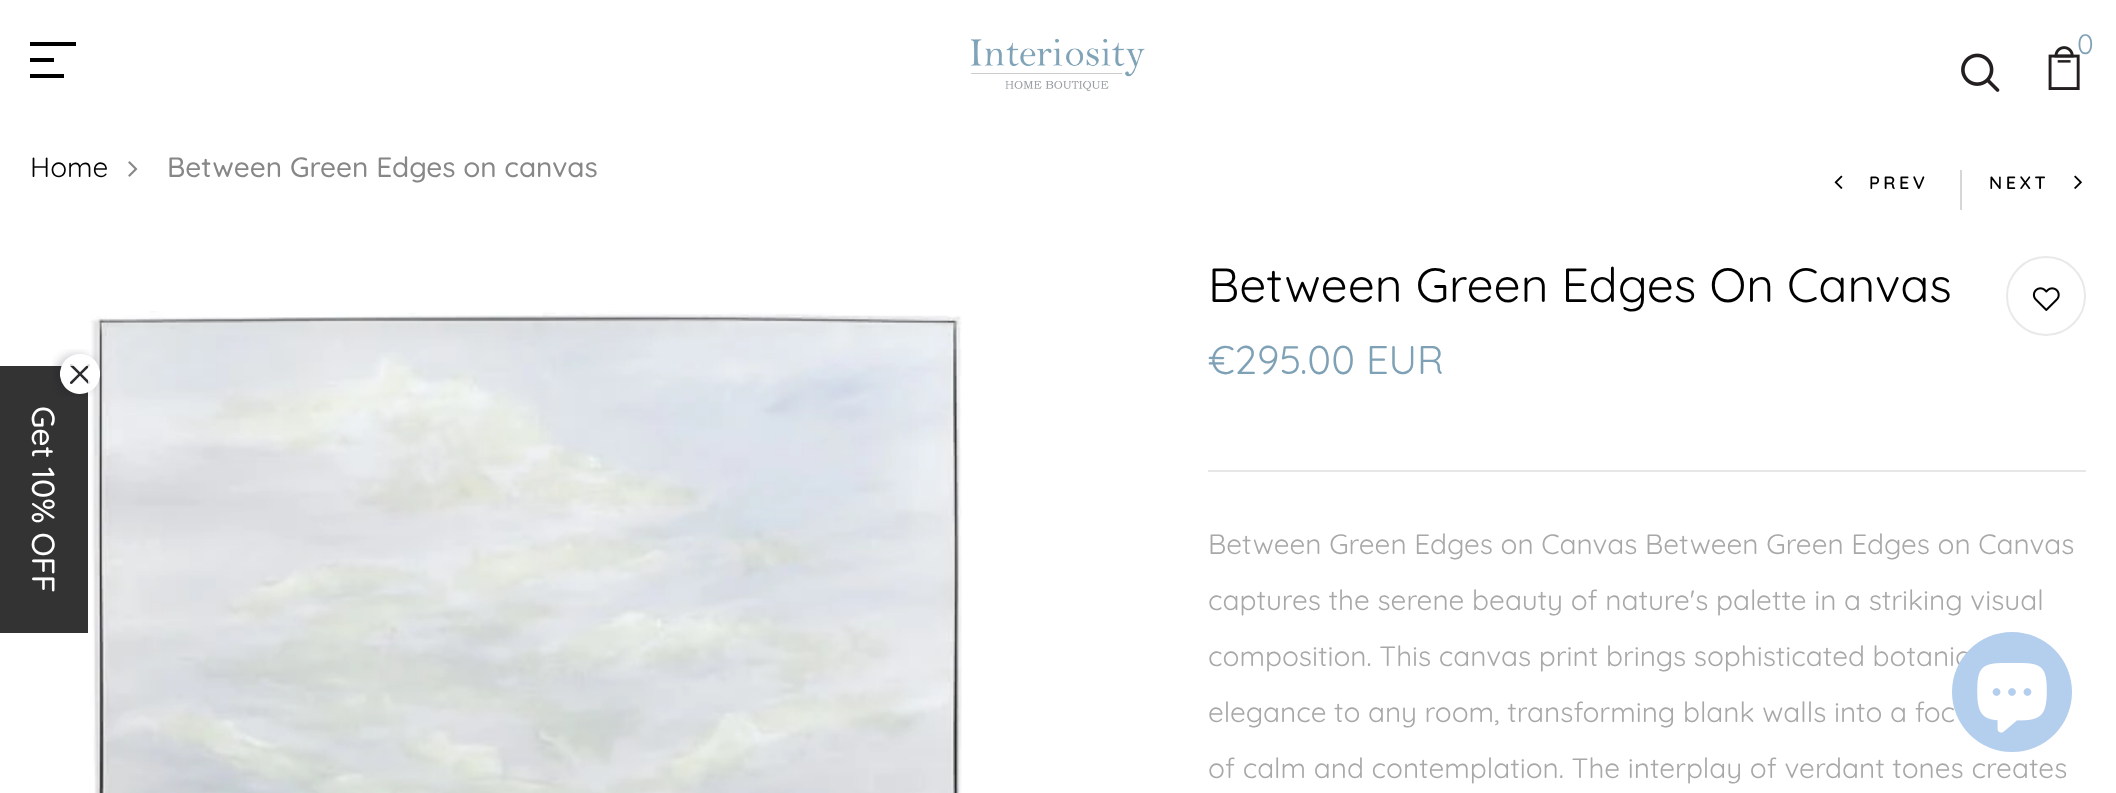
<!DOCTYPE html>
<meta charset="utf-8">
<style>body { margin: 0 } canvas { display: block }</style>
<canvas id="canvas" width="2116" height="793"></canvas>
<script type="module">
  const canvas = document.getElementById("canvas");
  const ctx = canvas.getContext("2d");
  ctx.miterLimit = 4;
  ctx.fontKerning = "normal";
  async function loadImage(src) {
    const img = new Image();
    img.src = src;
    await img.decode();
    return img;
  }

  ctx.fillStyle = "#ffffff";
  ctx.fillRect(0, 0, 2116, 793);
  ctx.fillStyle = "#000000";
  ctx.fillRect(30, 42, 46, 4);
  ctx.fillRect(30, 58, 24, 4);
  ctx.fillRect(30, 74, 34, 4);
  ctx.drawImage(await loadImage("img1.png"), 971, 39, 174, 52);
  ctx.drawImage(await loadImage("img2.png"), 2048, 46, 32, 44);
  ctx.font = "28px Quicksand";
  ctx.fillStyle = "#7fa1b6";
  ctx.fillText("0", 2077, 54);
  ctx.drawImage(await loadImage("img3.png"), 1961, 53, 39, 39);
  ctx.fillStyle = "#000000";
  ctx.fillText("Home", 30, 177);
  ctx.drawImage(await loadImage("img4.png"), 128, 161, 10, 16);
  ctx.font = "500 28px Quicksand";
  ctx.fillStyle = "#878787";
  ctx.fillText("Between Green Edges on canvas", 167, 177);
  ctx.drawImage(await loadImage("img5.png"), 1834, 175, 9, 14);
  ctx.letterSpacing = "3.5px";
  ctx.font = "600 18px Quicksand";
  ctx.fillStyle = "#000000";
  ctx.fillText("PREV", 1869, 189);
  ctx.fillStyle = "#d6d6d6";
  ctx.fillRect(1960, 170, 2, 40);
  ctx.fillStyle = "#000000";
  ctx.fillText("NEXT", 1989, 189);
  ctx.drawImage(await loadImage("img6.png"), 2074, 175, 8, 14);
  ctx.drawImage(await loadImage("img7.png"), 90, 311, 872, 482);
  ctx.letterSpacing = "0px";
  ctx.font = "48px Quicksand";
  ctx.fillText("Between Green Edges On Canvas", 1208, 302);
  ctx.beginPath();
  ctx.arc(2046, 296, 39, 0, Math.PI * 2);
  ctx.strokeStyle = "#e9e9e9";
  ctx.lineWidth = 2;
  ctx.stroke();
  ctx.drawImage(await loadImage("img8.png"), 2032, 287, 28, 24);
  ctx.font = "40px Quicksand";
  ctx.fillStyle = "#7fa1b6";
  ctx.fillText("€295.00 EUR", 1208, 374);
  ctx.fillStyle = "#e7e7e7";
  ctx.fillRect(1208, 470, 878, 2);
  ctx.font = "28px Quicksand";
  ctx.fillStyle = "#a8a8a8";
  ctx.fillText("Between Green Edges on Canvas Between Green Edges on Canvas", 1208, 554);
  ctx.fillText("captures the serene beauty of nature's palette in a striking visual", 1208, 610);
  ctx.fillText("composition. This canvas print brings sophisticated botanic", 1208, 666);
  ctx.fillText("elegance to any room, transforming blank walls into a foc", 1208, 722);
  ctx.fillText("of calm and contemplation. The interplay of verdant tones creates", 1208, 778);
  ctx.fillStyle = "#333333";
  ctx.fillRect(0, 366, 88, 267);
  ctx.drawImage(await loadImage("img9.png"), 52, 349, 48, 48);
  ctx.font = "500 32px Quicksand";
  ctx.fillStyle = "#ffffff";
  ctx.save();
  ctx.translate(32, 406);
  ctx.rotate(90 * Math.PI / 180);
  ctx.fillText("Get 10% OFF", 0, 0);
  ctx.restore();
  ctx.fillStyle = "#b4ceed";
  ctx.beginPath();
  ctx.arc(2012, 692, 60, 0, Math.PI * 2);
  ctx.fill();
  ctx.drawImage(await loadImage("img10.png"), 1977, 663, 70, 70);
</script>
